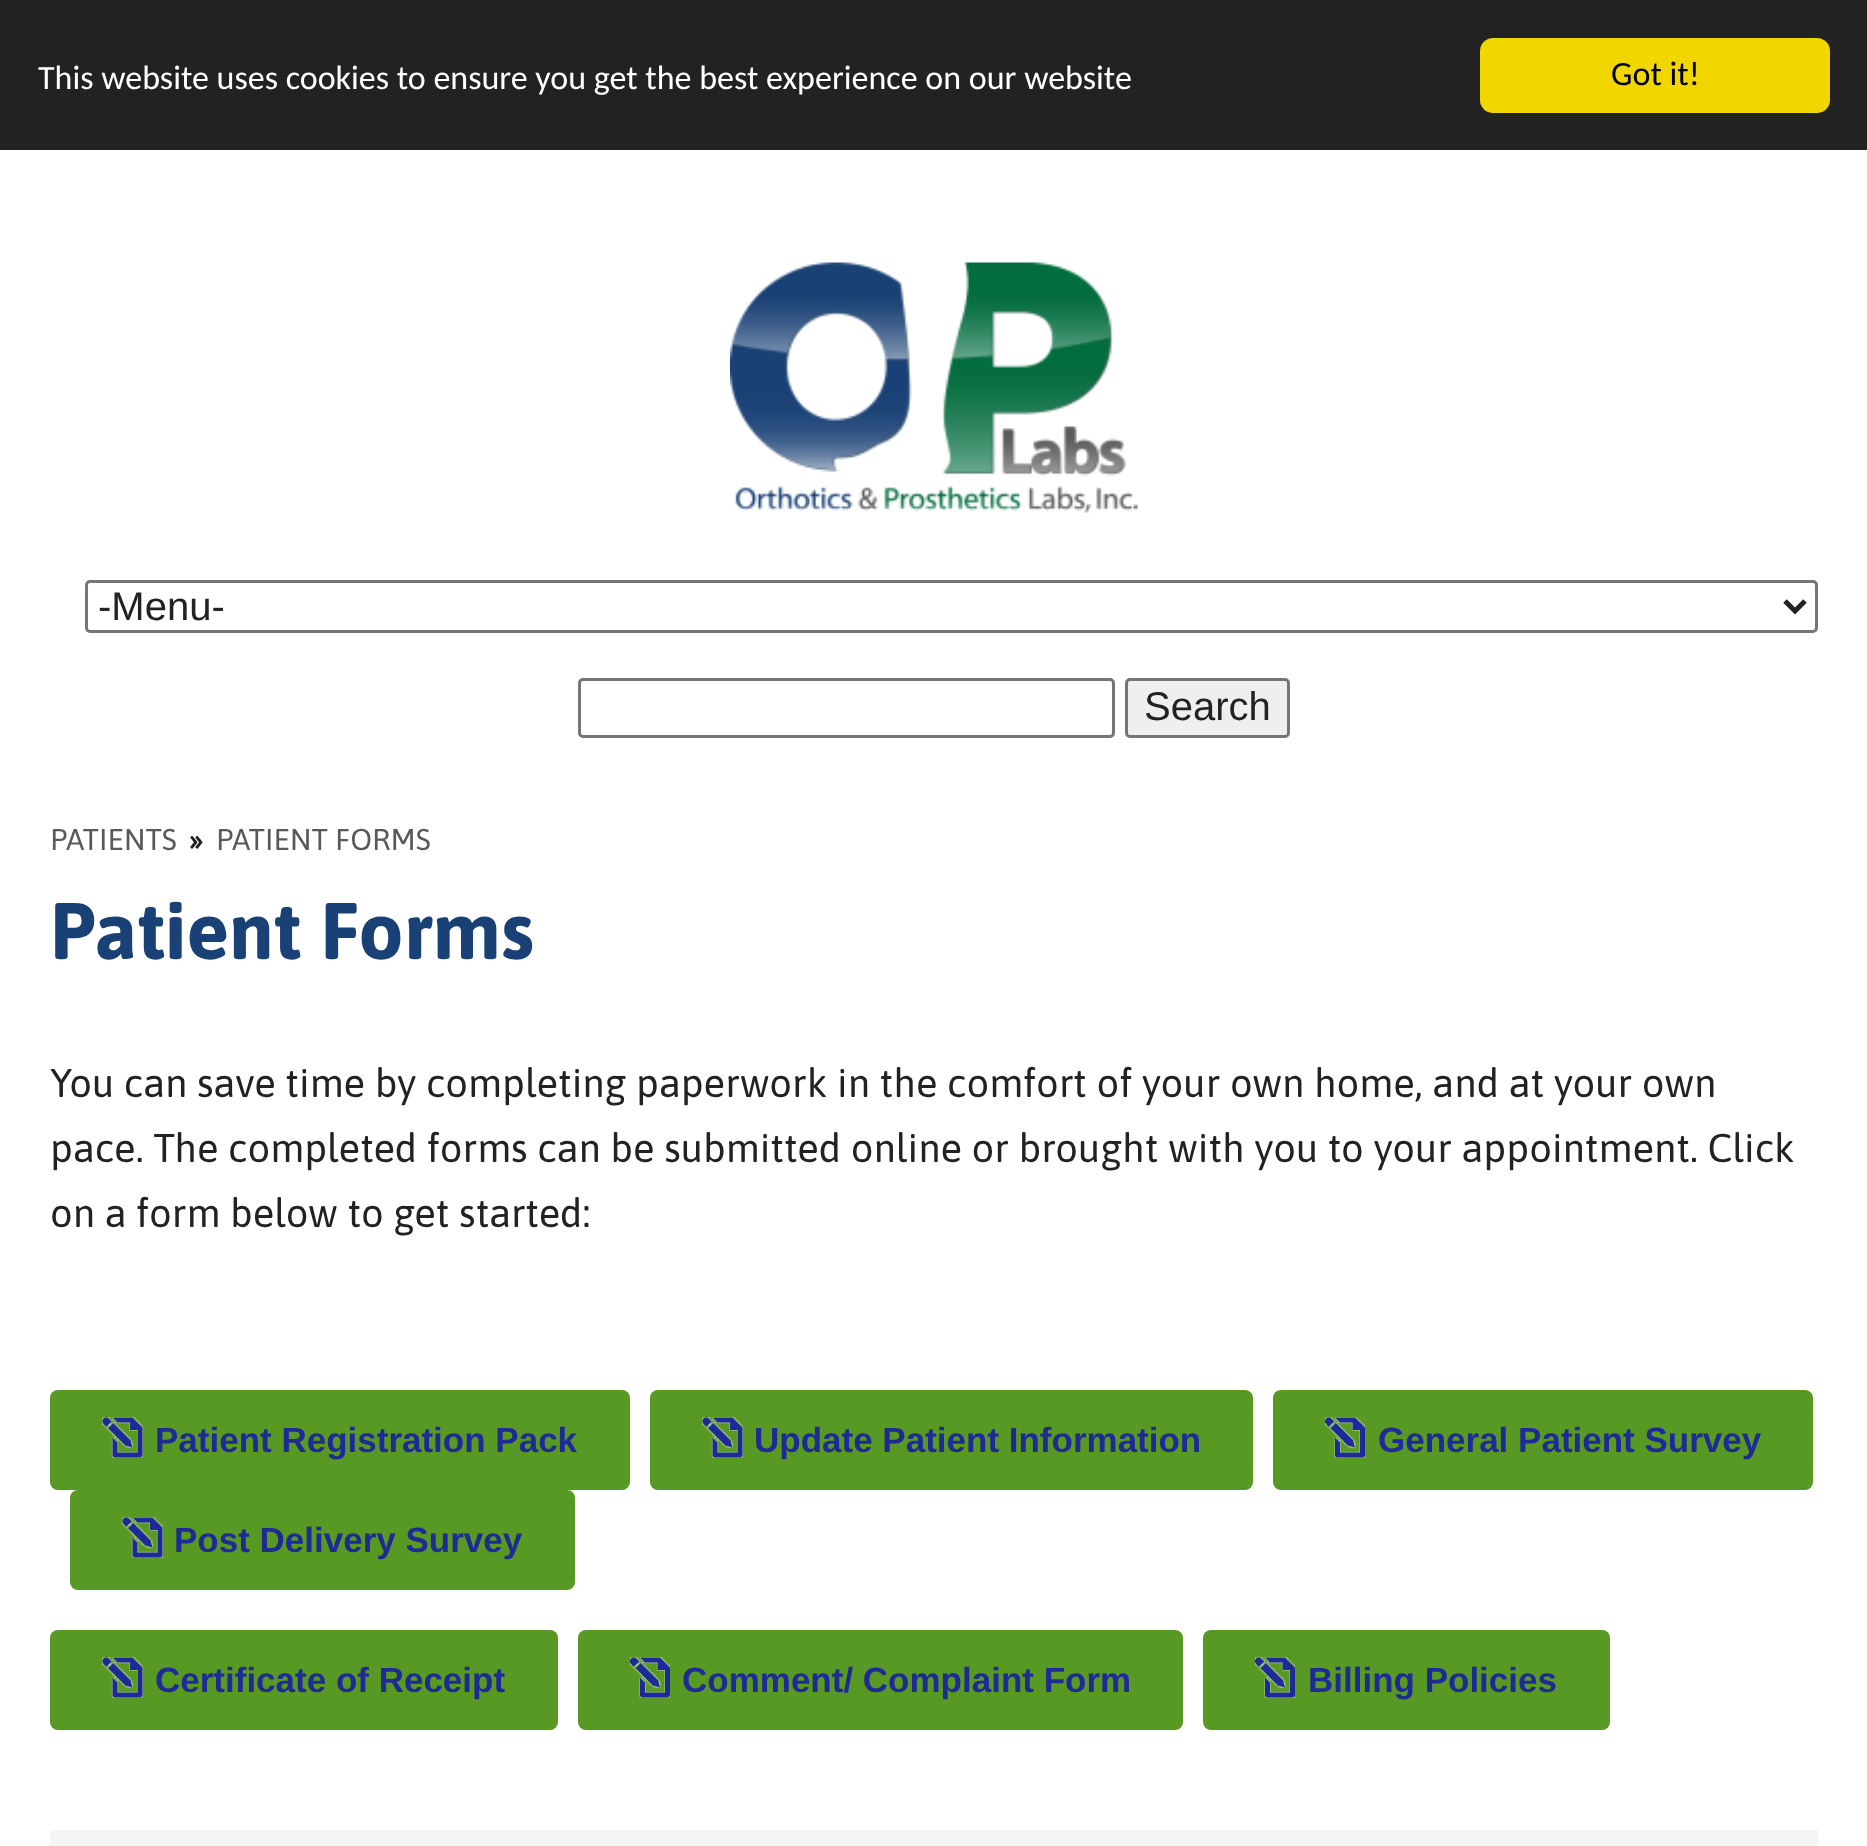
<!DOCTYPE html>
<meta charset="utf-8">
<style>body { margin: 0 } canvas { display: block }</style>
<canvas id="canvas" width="1867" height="1846"></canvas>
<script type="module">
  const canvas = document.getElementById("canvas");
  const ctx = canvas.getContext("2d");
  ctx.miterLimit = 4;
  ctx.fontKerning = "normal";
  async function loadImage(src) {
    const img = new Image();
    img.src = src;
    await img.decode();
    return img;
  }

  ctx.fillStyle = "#ffffff";
  ctx.fillRect(0, 0, 1867, 1846);
  ctx.fillStyle = "#222222";
  ctx.fillRect(0, 0, 1867, 150);
  ctx.font = "34px Carlito";
  ctx.fillStyle = "#ffffff";
  ctx.fillText("This website uses cookies to ensure you get the best experience on our website", 38, 89);
  ctx.fillStyle = "#f1d600";
  ctx.beginPath();
  ctx.roundRect(1480, 38, 350, 75, 13);
  ctx.fill();
  ctx.fillStyle = "#000000";
  ctx.fillText("Got it!", 1611, 85);
  ctx.drawImage(await loadImage("img1.png"), 730, 262, 408, 251);
  ctx.beginPath();
  ctx.roundRect(86.5, 581.5, 1730, 50, 3.5);
  ctx.strokeStyle = "#767676";
  ctx.lineWidth = 3;
  ctx.stroke();
  ctx.beginPath();
  ctx.moveTo(1785, 601);
  ctx.lineTo(1795, 611);
  ctx.lineTo(1805, 601);
  ctx.strokeStyle = "#222222";
  ctx.lineWidth = 5;
  ctx.stroke();
  ctx.font = "40px Liberation Sans";
  ctx.fillStyle = "#222222";
  ctx.fillText("-Menu-", 98, 620);
  ctx.beginPath();
  ctx.roundRect(579.5, 679.5, 534, 57, 3.5);
  ctx.strokeStyle = "#767676";
  ctx.lineWidth = 3;
  ctx.stroke();
  ctx.fillStyle = "#efefef";
  ctx.beginPath();
  ctx.roundRect(1126.5, 679.5, 162, 57, 3.5);
  ctx.fill();
  ctx.stroke();
  ctx.fillStyle = "#222222";
  ctx.fillText("Search", 1144, 720);
  ctx.font = "30px Asap";
  ctx.fillStyle = "#58595b";
  ctx.fillText("PATIENTS", 50, 850);
  ctx.font = "bold 30px Asap";
  ctx.fillStyle = "#222222";
  ctx.fillText("»", 189, 850);
  ctx.font = "30px Asap";
  ctx.fillStyle = "#58595b";
  ctx.fillText("PATIENT FORMS", 216, 850);
  ctx.font = "bold 80px Asap";
  ctx.fillStyle = "#1a4175";
  ctx.fillText("Patient Forms", 50, 959);
  ctx.font = "40px Asap";
  ctx.fillStyle = "#222222";
  ctx.fillText("You can save time by completing paperwork in the comfort of your own home, and at your own", 50, 1097);
  ctx.fillText("pace. The completed forms can be submitted online or brought with you to your appointment. Click", 50, 1162);
  ctx.fillText("on a form below to get started:", 50, 1227);
  ctx.fillStyle = "#589924";
  ctx.beginPath();
  ctx.roundRect(50, 1390, 580, 100, 8);
  ctx.fill();
  ctx.drawImage(await loadImage("img2.png"), 102, 1417, 41, 41);
  ctx.drawImage(await loadImage("img3.png"), 102, 1417, 41, 41);
  ctx.font = "bold 35px Liberation Sans";
  ctx.fillStyle = "#1e2a96";
  ctx.fillText("Patient Registration Pack", 155, 1452);
  ctx.fillStyle = "#589924";
  ctx.beginPath();
  ctx.roundRect(650, 1390, 603, 100, 8);
  ctx.fill();
  ctx.drawImage(await loadImage("img2.png"), 702, 1417, 41, 41);
  ctx.drawImage(await loadImage("img3.png"), 702, 1417, 41, 41);
  ctx.fillStyle = "#1e2a96";
  ctx.fillText("Update Patient Information", 754, 1452);
  ctx.fillStyle = "#589924";
  ctx.beginPath();
  ctx.roundRect(1273, 1390, 540, 100, 8);
  ctx.fill();
  ctx.drawImage(await loadImage("img4.png"), 1325, 1417, 40, 41);
  ctx.drawImage(await loadImage("img5.png"), 1324, 1417, 41, 41);
  ctx.fillStyle = "#1e2a96";
  ctx.fillText("General Patient Survey", 1378, 1452);
  ctx.fillStyle = "#589924";
  ctx.beginPath();
  ctx.roundRect(70, 1490, 505, 100, 8);
  ctx.fill();
  ctx.drawImage(await loadImage("img2.png"), 122, 1517, 41, 41);
  ctx.drawImage(await loadImage("img3.png"), 122, 1517, 41, 41);
  ctx.fillStyle = "#1e2a96";
  ctx.fillText("Post Delivery Survey", 174, 1552);
  ctx.fillStyle = "#589924";
  ctx.beginPath();
  ctx.roundRect(50, 1630, 508, 100, 8);
  ctx.fill();
  ctx.drawImage(await loadImage("img2.png"), 102, 1657, 41, 41);
  ctx.drawImage(await loadImage("img3.png"), 102, 1657, 41, 41);
  ctx.fillStyle = "#1e2a96";
  ctx.fillText("Certificate of Receipt", 155, 1692);
  ctx.fillStyle = "#589924";
  ctx.beginPath();
  ctx.roundRect(578, 1630, 605, 100, 8);
  ctx.fill();
  ctx.drawImage(await loadImage("img4.png"), 630, 1657, 40, 41);
  ctx.drawImage(await loadImage("img5.png"), 629, 1657, 41, 41);
  ctx.fillStyle = "#1e2a96";
  ctx.fillText("Comment/ Complaint Form", 682, 1692);
  ctx.fillStyle = "#589924";
  ctx.beginPath();
  ctx.roundRect(1203, 1630, 407, 100, 8);
  ctx.fill();
  ctx.drawImage(await loadImage("img6.png"), 1255, 1657, 40, 41);
  ctx.drawImage(await loadImage("img7.png"), 1254, 1657, 41, 41);
  ctx.fillStyle = "#1e2a96";
  ctx.fillText("Billing Policies", 1308, 1692);
  ctx.fillStyle = "#f5f5f5";
  ctx.fillRect(50, 1830, 1768, 16);
</script>
